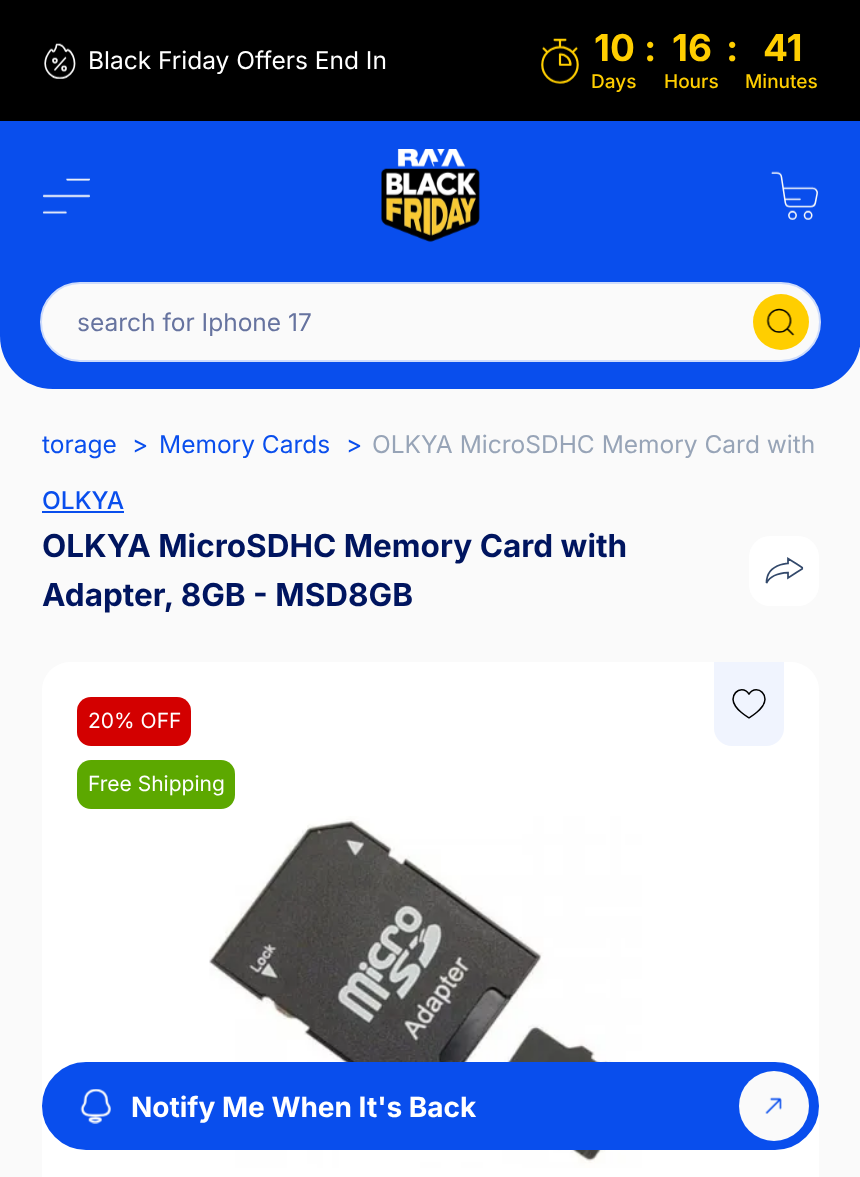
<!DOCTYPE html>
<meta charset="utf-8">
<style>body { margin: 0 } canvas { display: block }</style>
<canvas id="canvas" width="860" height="1177"></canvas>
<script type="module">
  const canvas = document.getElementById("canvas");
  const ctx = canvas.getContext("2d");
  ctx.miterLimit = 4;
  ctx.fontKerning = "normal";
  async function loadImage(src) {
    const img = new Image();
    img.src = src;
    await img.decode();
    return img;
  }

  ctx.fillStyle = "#fafafa";
  ctx.fillRect(0, 0, 860, 1177);
  ctx.fillStyle = "#094eed";
  ctx.beginPath();
  ctx.moveTo(0, 0);
  ctx.lineTo(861, 0);
  ctx.lineTo(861, 336);
  ctx.bezierCurveTo(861, 365.5, 837.5, 389, 808, 389);
  ctx.lineTo(53, 389);
  ctx.bezierCurveTo(23.5, 389, 0, 365.5, 0, 336);
  ctx.closePath();
  ctx.fill();
  ctx.fillStyle = "#000000";
  ctx.fillRect(0, 0, 860, 121);
  ctx.drawImage(await loadImage("img1.png"), 44, 43, 32, 36);
  ctx.font = "24.5px Inter";
  ctx.fillStyle = "#ffffff";
  ctx.fillText("Black Friday Offers End In", 88, 69);
  ctx.drawImage(await loadImage("img2.png"), 541, 38, 38, 46);
  ctx.font = "bold 37px Inter";
  ctx.fillStyle = "#ffce00";
  ctx.fillText("10", 594, 61);
  ctx.font = "500 19px Inter";
  ctx.fillText("Days", 591, 88);
  ctx.font = "bold 37px Inter";
  ctx.fillText(":", 644, 61);
  ctx.fillText("16", 672, 61);
  ctx.font = "500 19px Inter";
  ctx.fillText("Hours", 664, 88);
  ctx.font = "bold 37px Inter";
  ctx.fillText(":", 726, 61);
  ctx.fillText("41", 763, 61);
  ctx.font = "500 19px Inter";
  ctx.fillText("Minutes", 745, 88);
  ctx.drawImage(await loadImage("img3.png"), 43, 178, 47, 36);
  ctx.drawImage(await loadImage("img4.png"), 381, 149, 99, 93);
  ctx.drawImage(await loadImage("img5.png"), 771, 171, 47, 49);
  ctx.fillStyle = "#fafafa";
  ctx.beginPath();
  ctx.roundRect(41, 283, 779, 78, 39);
  ctx.fill();
  ctx.strokeStyle = "#cedcfb";
  ctx.lineWidth = 2;
  ctx.stroke();
  ctx.font = "24.5px Inter";
  ctx.fillStyle = "#66739f";
  ctx.fillText("search for Iphone 17", 77, 331);
  ctx.fillStyle = "#ffce00";
  ctx.beginPath();
  ctx.arc(781, 322, 28, 0, Math.PI * 2);
  ctx.fill();
  ctx.drawImage(await loadImage("img6.png"), 766, 308, 29, 28);
  ctx.fillStyle = "#094eed";
  ctx.fillText("torage", 42, 453);
  ctx.fillText(">", 132, 453);
  ctx.fillText("Memory Cards", 159, 453);
  ctx.fillText(">", 346, 453);
  ctx.fillStyle = "#97a4b7";
  ctx.fillText("OLKYA MicroSDHC Memory Card with", 372, 453);
  ctx.font = "500 24.5px Inter";
  ctx.fillStyle = "#094eed";
  ctx.fillText("OLKYA", 42, 509);
  ctx.fillRect(42, 511, 82, 2);
  ctx.font = "bold 31.5px Inter";
  ctx.fillStyle = "#00155f";
  ctx.fillText("OLKYA MicroSDHC Memory Card with", 42, 557);
  ctx.fillText("Adapter, 8GB - MSD8GB", 42, 606);
  ctx.fillStyle = "#ffffff";
  ctx.beginPath();
  ctx.roundRect(749, 536, 70, 70, 21);
  ctx.fill();
  ctx.drawImage(await loadImage("img7.png"), 765, 557, 39, 27);
  ctx.beginPath();
  ctx.roundRect(42, 662, 777, 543, 28);
  ctx.fill();
  ctx.fillStyle = "#d30000";
  ctx.beginPath();
  ctx.roundRect(77, 697, 114, 49, 14);
  ctx.fill();
  ctx.font = "21px Inter";
  ctx.fillStyle = "#ffffff";
  ctx.fillText("20% OFF", 88, 728);
  ctx.fillStyle = "#f0f4fe";
  ctx.beginPath();
  ctx.roundRect(714, 662, 70, 84, [0, 0, 18, 18]);
  ctx.fill();
  ctx.drawImage(await loadImage("img8.png"), 732, 689, 34, 30);
  ctx.fillStyle = "#5ca800";
  ctx.beginPath();
  ctx.roundRect(77, 760, 158, 49, 14);
  ctx.fill();
  ctx.fillStyle = "#ffffff";
  ctx.fillText("Free Shipping", 88, 791);
  ctx.drawImage(await loadImage("img9.png"), 209, 816, 433, 352);
  ctx.fillStyle = "#094eed";
  ctx.beginPath();
  ctx.roundRect(43, 1063, 775, 86, 43);
  ctx.fill();
  ctx.strokeStyle = "#094eed";
  ctx.stroke();
  ctx.drawImage(await loadImage("img10.png"), 80, 1089, 31, 35);
  ctx.font = "bold 28px Inter";
  ctx.fillStyle = "#ffffff";
  ctx.fillText("Notify Me When It's Back", 131, 1117);
  ctx.fillStyle = "#fafafa";
  ctx.beginPath();
  ctx.arc(774, 1106, 35, 0, Math.PI * 2);
  ctx.fill();
  ctx.drawImage(await loadImage("img11.png"), 765, 1097, 17, 17);
</script>
